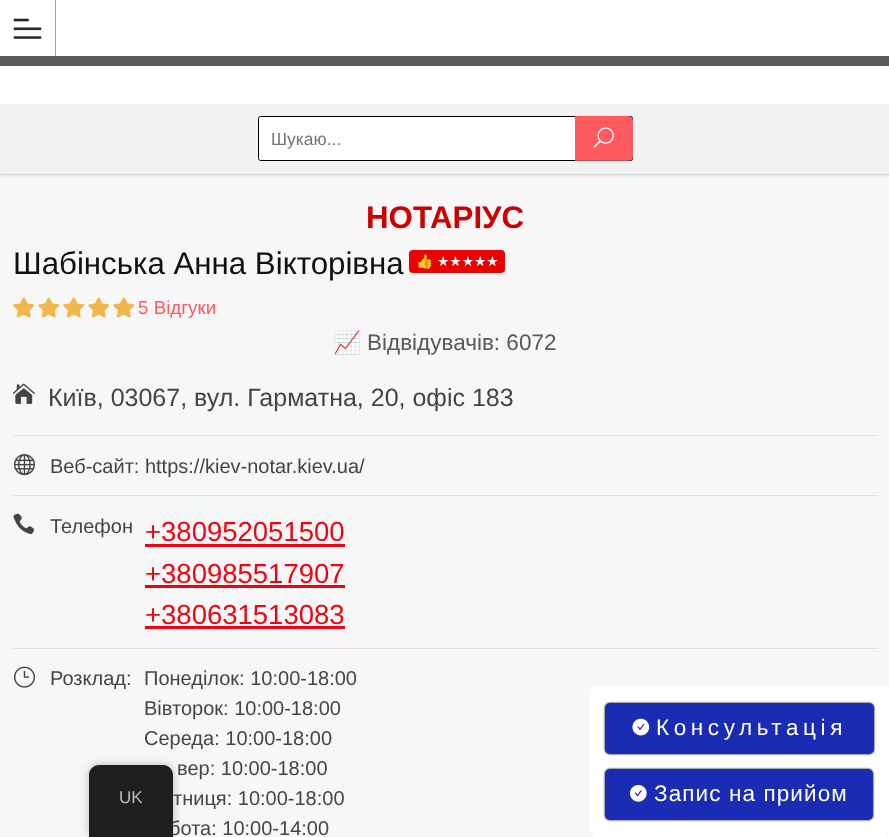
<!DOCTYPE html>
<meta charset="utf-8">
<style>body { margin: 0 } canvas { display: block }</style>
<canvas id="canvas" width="889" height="837"></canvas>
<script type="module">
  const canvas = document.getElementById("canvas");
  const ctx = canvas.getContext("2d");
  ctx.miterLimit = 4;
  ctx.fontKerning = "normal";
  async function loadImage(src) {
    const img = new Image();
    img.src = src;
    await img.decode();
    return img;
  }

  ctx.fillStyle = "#f7f7f7";
  ctx.fillRect(0, 0, 889, 837);
  ctx.fillStyle = "#ffffff";
  ctx.fillRect(0, 0, 889, 56);
  ctx.fillStyle = "rgba(0, 0, 0, 0.1)";
  ctx.filter = "blur(1px)";
  ctx.beginPath();
  ctx.rect(1, 58, 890, 118);
  ctx.fill();
  ctx.filter = "none";
  ctx.fillStyle = "#a0a0a0";
  ctx.fillRect(55, 0, 1, 56);
  ctx.drawImage(await loadImage("img1.png"), 13, 18, 29, 21);
  ctx.fillStyle = "#dadada";
  ctx.fillRect(0, 174, 889, 1);
  ctx.fillStyle = "#ffffff";
  ctx.fillRect(0, 66, 889, 38);
  ctx.fillStyle = "#565a5c";
  ctx.fillRect(0, 56, 889, 10);
  ctx.fillStyle = "#f2f2f2";
  ctx.fillRect(1, 104, 888, 70);
  ctx.fillStyle = "#ffffff";
  ctx.beginPath();
  ctx.roundRect(258.5, 116.5, 374, 44, 2);
  ctx.fill();
  ctx.strokeStyle = "#000000";
  ctx.stroke();
  ctx.font = "17.5px Arimo";
  ctx.fillStyle = "#757575";
  ctx.fillText("Шукаю...", 271, 145);
  ctx.fillStyle = "#ff5a5f";
  ctx.beginPath();
  ctx.roundRect(575, 116, 58, 45, [0, 5, 5, 0]);
  ctx.fill();
  ctx.fillStyle = "rgba(0, 0, 0, 0.2)";
  ctx.fillRect(575, 160, 55, 1);
  ctx.drawImage(await loadImage("img2.png"), 593, 127, 21, 21);
  ctx.font = "bold 31.25px Arimo";
  ctx.fillStyle = "#cc0000";
  ctx.fillText("НОТАРІУС", 366, 228);
  ctx.font = "31.25px Arimo";
  ctx.fillStyle = "#111111";
  ctx.fillText("Шабінська Анна Вікторівна", 13, 274);
  ctx.fillStyle = "#ec0101";
  ctx.beginPath();
  ctx.roundRect(409, 250, 96, 23, 4);
  ctx.fill();
  ctx.font = "13.75px Noto Color Emoji";
  ctx.fillStyle = "#ffffff";
  ctx.fillText("👍", 416, 266);
  ctx.font = "13.75px DejaVu Sans";
  ctx.fillText("★★★★★", 437, 266);
  ctx.drawImage(await loadImage("img3.png"), 13, 297, 22, 21);
  ctx.drawImage(await loadImage("img3.png"), 38, 297, 22, 21);
  ctx.drawImage(await loadImage("img3.png"), 63, 297, 22, 21);
  ctx.drawImage(await loadImage("img3.png"), 88, 297, 22, 21);
  ctx.drawImage(await loadImage("img3.png"), 113, 297, 22, 21);
  ctx.font = "18.75px Arimo";
  ctx.fillStyle = "#ff5a5f";
  ctx.fillText("5 Відгуки", 138, 314);
  ctx.font = "22.5px Noto Color Emoji";
  ctx.fillStyle = "#565a5c";
  ctx.fillText("📈", 333, 350);
  ctx.font = "22.5px Arimo";
  ctx.fillText("Відвідувачів: 6072", 367, 350);
  ctx.drawImage(await loadImage("img4.png"), 13, 383, 22, 21);
  ctx.font = "25px Arimo";
  ctx.fillStyle = "#444444";
  ctx.fillText("Київ, 03067, вул. Гарматна, 20, офіс 183", 48, 406);
  ctx.fillStyle = "#dedede";
  ctx.fillRect(13, 435, 865, 1);
  ctx.drawImage(await loadImage("img5.png"), 13, 454, 22, 22);
  ctx.font = "20px Arimo";
  ctx.fillStyle = "#444444";
  ctx.fillText("Веб-сайт: https://kiev-notar.kiev.ua/", 50, 473);
  ctx.fillStyle = "#dedede";
  ctx.fillRect(13, 495, 865, 1);
  ctx.drawImage(await loadImage("img6.png"), 13, 513, 22, 22);
  ctx.fillStyle = "#444444";
  ctx.fillText("Телефон", 50, 533);
  ctx.font = "27.5px Arimo";
  ctx.fillStyle = "#f40010";
  ctx.fillText("+380952051500", 145, 541);
  ctx.fillRect(145, 544, 200, 3);
  ctx.fillText("+380985517907", 145, 583);
  ctx.fillRect(145, 585, 200, 3);
  ctx.fillText("+380631513083", 145, 624);
  ctx.fillRect(145, 626, 200, 3);
  ctx.fillStyle = "#dedede";
  ctx.fillRect(13, 648, 865, 1);
  ctx.drawImage(await loadImage("img7.png"), 14, 666, 21, 22);
  ctx.font = "20px Arimo";
  ctx.fillStyle = "#444444";
  ctx.fillText("Розклад:", 50, 685);
  ctx.fillText("Понеділок: 10:00-18:00", 144, 685);
  ctx.fillText("Вівторок: 10:00-18:00", 144, 715);
  ctx.fillText("Середа: 10:00-18:00", 144, 745);
  ctx.fillText("вер: 10:00-18:00", 177, 775);
  ctx.fillText("тниця: 10:00-18:00", 173, 805);
  ctx.fillText("бота: 10:00-14:00", 169, 835);
  ctx.fillStyle = "#ffffff";
  ctx.beginPath();
  ctx.roundRect(590, 685, 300, 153, 8);
  ctx.fill();
  ctx.fillStyle = "#000000";
  ctx.filter = "blur(1px)";
  ctx.beginPath();
  ctx.roundRect(605, 703, 269, 51, 5);
  ctx.fill();
  ctx.filter = "none";
  ctx.fillStyle = "#1a2bb4";
  ctx.beginPath();
  ctx.roundRect(605, 703, 269, 51, 5);
  ctx.fill();
  ctx.drawImage(await loadImage("img8.png"), 632, 718, 18, 18);
  ctx.letterSpacing = "4.6px";
  ctx.font = "22.5px Liberation Sans";
  ctx.fillStyle = "#ffffff";
  ctx.fillText("Консультація", 656, 735);
  ctx.fillStyle = "#000000";
  ctx.filter = "blur(1px)";
  ctx.beginPath();
  ctx.roundRect(605, 769, 268, 51, 5);
  ctx.fill();
  ctx.filter = "none";
  ctx.fillStyle = "#1a2bb4";
  ctx.beginPath();
  ctx.roundRect(605, 769, 268, 51, 5);
  ctx.fill();
  ctx.drawImage(await loadImage("img9.png"), 629, 784, 18, 18);
  ctx.letterSpacing = "1.1px";
  ctx.fillStyle = "#ffffff";
  ctx.fillText("Запис на прийом", 654, 801);
  ctx.fillStyle = "rgba(0, 0, 0, 0.25)";
  ctx.filter = "blur(5px)";
  ctx.beginPath();
  ctx.roundRect(89, 765, 84, 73, 10);
  ctx.fill();
  ctx.filter = "none";
  ctx.fillStyle = "#1e1e1e";
  ctx.beginPath();
  ctx.moveTo(99, 765);
  ctx.lineTo(163, 765);
  ctx.bezierCurveTo(168.5, 765, 173, 769.5, 173, 775);
  ctx.lineTo(173, 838);
  ctx.lineTo(89, 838);
  ctx.lineTo(89, 775);
  ctx.bezierCurveTo(89, 769.5, 93.5, 765, 99, 765);
  ctx.closePath();
  ctx.fill();
  ctx.letterSpacing = "0px";
  ctx.font = "17px Arimo";
  ctx.fillStyle = "#bdbdbd";
  ctx.fillText("UK", 119, 803);
</script>
